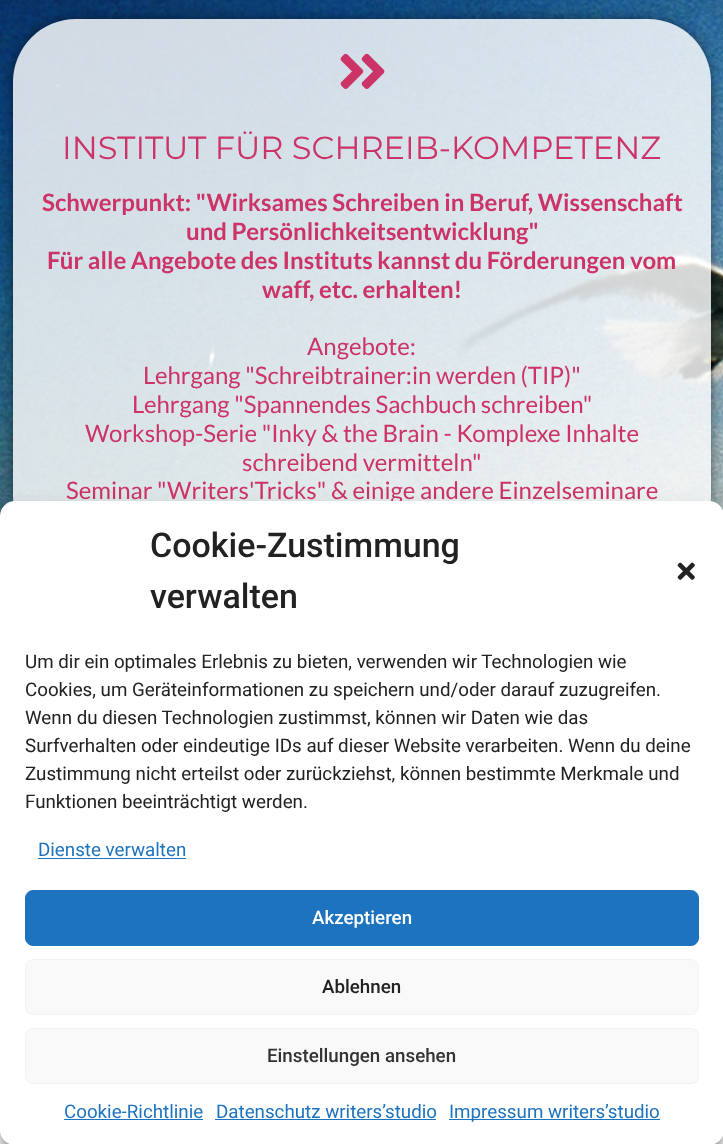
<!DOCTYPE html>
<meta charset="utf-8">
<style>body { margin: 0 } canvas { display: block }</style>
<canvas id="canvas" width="723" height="1144"></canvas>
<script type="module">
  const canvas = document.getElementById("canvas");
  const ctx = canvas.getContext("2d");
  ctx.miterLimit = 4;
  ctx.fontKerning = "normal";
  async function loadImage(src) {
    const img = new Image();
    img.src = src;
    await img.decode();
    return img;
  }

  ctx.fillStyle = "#ffffff";
  ctx.fillRect(0, 0, 723, 1144);
  ctx.drawImage(await loadImage("img1.png"), 0, 0, 723, 516);
  ctx.save();
  ctx.beginPath();
  ctx.moveTo(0, 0);
  ctx.lineTo(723, 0);
  ctx.lineTo(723, 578);
  ctx.lineTo(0, 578);
  ctx.closePath();
  ctx.moveTo(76, 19);
  ctx.lineTo(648, 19);
  ctx.bezierCurveTo(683, 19, 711, 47, 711, 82);
  ctx.lineTo(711, 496);
  ctx.bezierCurveTo(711, 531, 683, 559, 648, 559);
  ctx.lineTo(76, 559);
  ctx.bezierCurveTo(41, 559, 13, 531, 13, 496);
  ctx.lineTo(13, 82);
  ctx.bezierCurveTo(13, 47, 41, 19, 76, 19);
  ctx.closePath();
  ctx.clip("evenodd");
  ctx.fillStyle = "rgba(0, 0, 0, 0.5)";
  ctx.filter = "blur(6px)";
  ctx.beginPath();
  ctx.roundRect(13, 19, 698, 540, 63);
  ctx.fill();
  ctx.filter = "none";
  ctx.restore();
  ctx.fillStyle = "rgba(255, 255, 255, 0.82)";
  ctx.beginPath();
  ctx.roundRect(13, 19, 698, 540, 63);
  ctx.fill();
  ctx.drawImage(await loadImage("img2.png"), 340, 53, 45, 36);
  ctx.font = "32px Montserrat";
  ctx.fillStyle = "#cc3366";
  ctx.fillText("INSTITUT FÜR SCHREIB-KOMPETENZ", 62, 159);
  ctx.font = "bold 24px Lato";
  ctx.fillText("Schwerpunkt: \"Wirksames Schreiben in Beruf, Wissenschaft", 42, 211);
  ctx.fillText("und Persönlichkeitsentwicklung\"", 186, 240);
  ctx.fillText("Für alle Angebote des Instituts kannst du Förderungen vom", 47, 269);
  ctx.fillText("waff, etc. erhalten!", 262, 298);
  ctx.font = "24px Lato";
  ctx.fillText("Angebote:", 307, 355);
  ctx.fillText("Lehrgang \"Schreibtrainer:in werden (TIP)\"", 143, 384);
  ctx.fillText("Lehrgang \"Spannendes Sachbuch schreiben\"", 132, 413);
  ctx.fillText("Workshop-Serie \"Inky & the Brain - Komplexe Inhalte", 85, 442);
  ctx.fillText("schreibend vermitteln\"", 242, 471);
  ctx.fillText("Seminar \"Writers'Tricks\" & einige andere Einzelseminare", 66, 499);
  ctx.fillStyle = "rgba(0, 0, 0, 0.5)";
  ctx.filter = "blur(6px)";
  ctx.beginPath();
  ctx.roundRect(13, 584, 698, 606, 63);
  ctx.fill();
  ctx.filter = "none";
  ctx.fillStyle = "rgba(0, 0, 0, 0.23)";
  ctx.filter = "blur(4px)";
  ctx.beginPath();
  ctx.roundRect(0, 509, 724, 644, 15);
  ctx.fill();
  ctx.filter = "none";
  ctx.fillStyle = "rgba(0, 0, 0, 0.19)";
  ctx.filter = "blur(12.5px)";
  ctx.beginPath();
  ctx.roundRect(0, 514, 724, 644, 15);
  ctx.fill();
  ctx.filter = "none";
  ctx.fillStyle = "#ffffff";
  ctx.beginPath();
  ctx.roundRect(0, 501, 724, 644, 15);
  ctx.fill();
  ctx.font = "500 34px Roboto";
  ctx.fillStyle = "#222222";
  ctx.fillText("Cookie-Zustimmung", 150, 557);
  ctx.fillText("verwalten", 150, 608);
  ctx.drawImage(await loadImage("img3.png"), 677, 562, 18, 18);
  ctx.font = "18.75px Roboto";
  ctx.fillText("Um dir ein optimales Erlebnis zu bieten, verwenden wir Technologien wie", 25, 668);
  ctx.fillText("Cookies, um Geräteinformationen zu speichern und/oder darauf zuzugreifen.", 25, 696);
  ctx.fillText("Wenn du diesen Technologien zustimmst, können wir Daten wie das", 25, 724);
  ctx.fillText("Surfverhalten oder eindeutige IDs auf dieser Website verarbeiten. Wenn du deine", 25, 752);
  ctx.fillText("Zustimmung nicht erteilst oder zurückziehst, können bestimmte Merkmale und", 25, 780);
  ctx.fillText("Funktionen beeinträchtigt werden.", 25, 808);
  ctx.fillStyle = "#1e73be";
  ctx.fillText("Dienste verwalten", 38, 856);
  ctx.fillRect(38, 858, 148, 1);
  ctx.beginPath();
  ctx.roundRect(25.5, 890.5, 673, 55, 7.5);
  ctx.fill();
  ctx.strokeStyle = "#1e73be";
  ctx.stroke();
  ctx.font = "500 18.75px Roboto";
  ctx.fillStyle = "#ffffff";
  ctx.fillText("Akzeptieren", 312, 924);
  ctx.fillStyle = "#f9f9f9";
  ctx.beginPath();
  ctx.roundRect(25.5, 959.5, 673, 55, 7.5);
  ctx.fill();
  ctx.strokeStyle = "#f2f2f2";
  ctx.stroke();
  ctx.fillStyle = "#222222";
  ctx.fillText("Ablehnen", 322, 993);
  ctx.fillStyle = "#f9f9f9";
  ctx.beginPath();
  ctx.roundRect(25.5, 1028.5, 673, 55, 7.5);
  ctx.fill();
  ctx.stroke();
  ctx.fillStyle = "#333333";
  ctx.fillText("Einstellungen ansehen", 267, 1062);
  ctx.font = "18.75px Roboto";
  ctx.fillStyle = "#1e73be";
  ctx.fillText("Cookie-Richtlinie", 64, 1118);
  ctx.fillRect(64, 1119, 139, 1);
  ctx.fillText("Datenschutz writers’studio", 216, 1118);
  ctx.fillRect(215, 1119, 221, 1);
  ctx.fillRect(449, 1119, 211, 1);
  ctx.fillText("Impressum writers’studio", 449, 1118);
</script>
